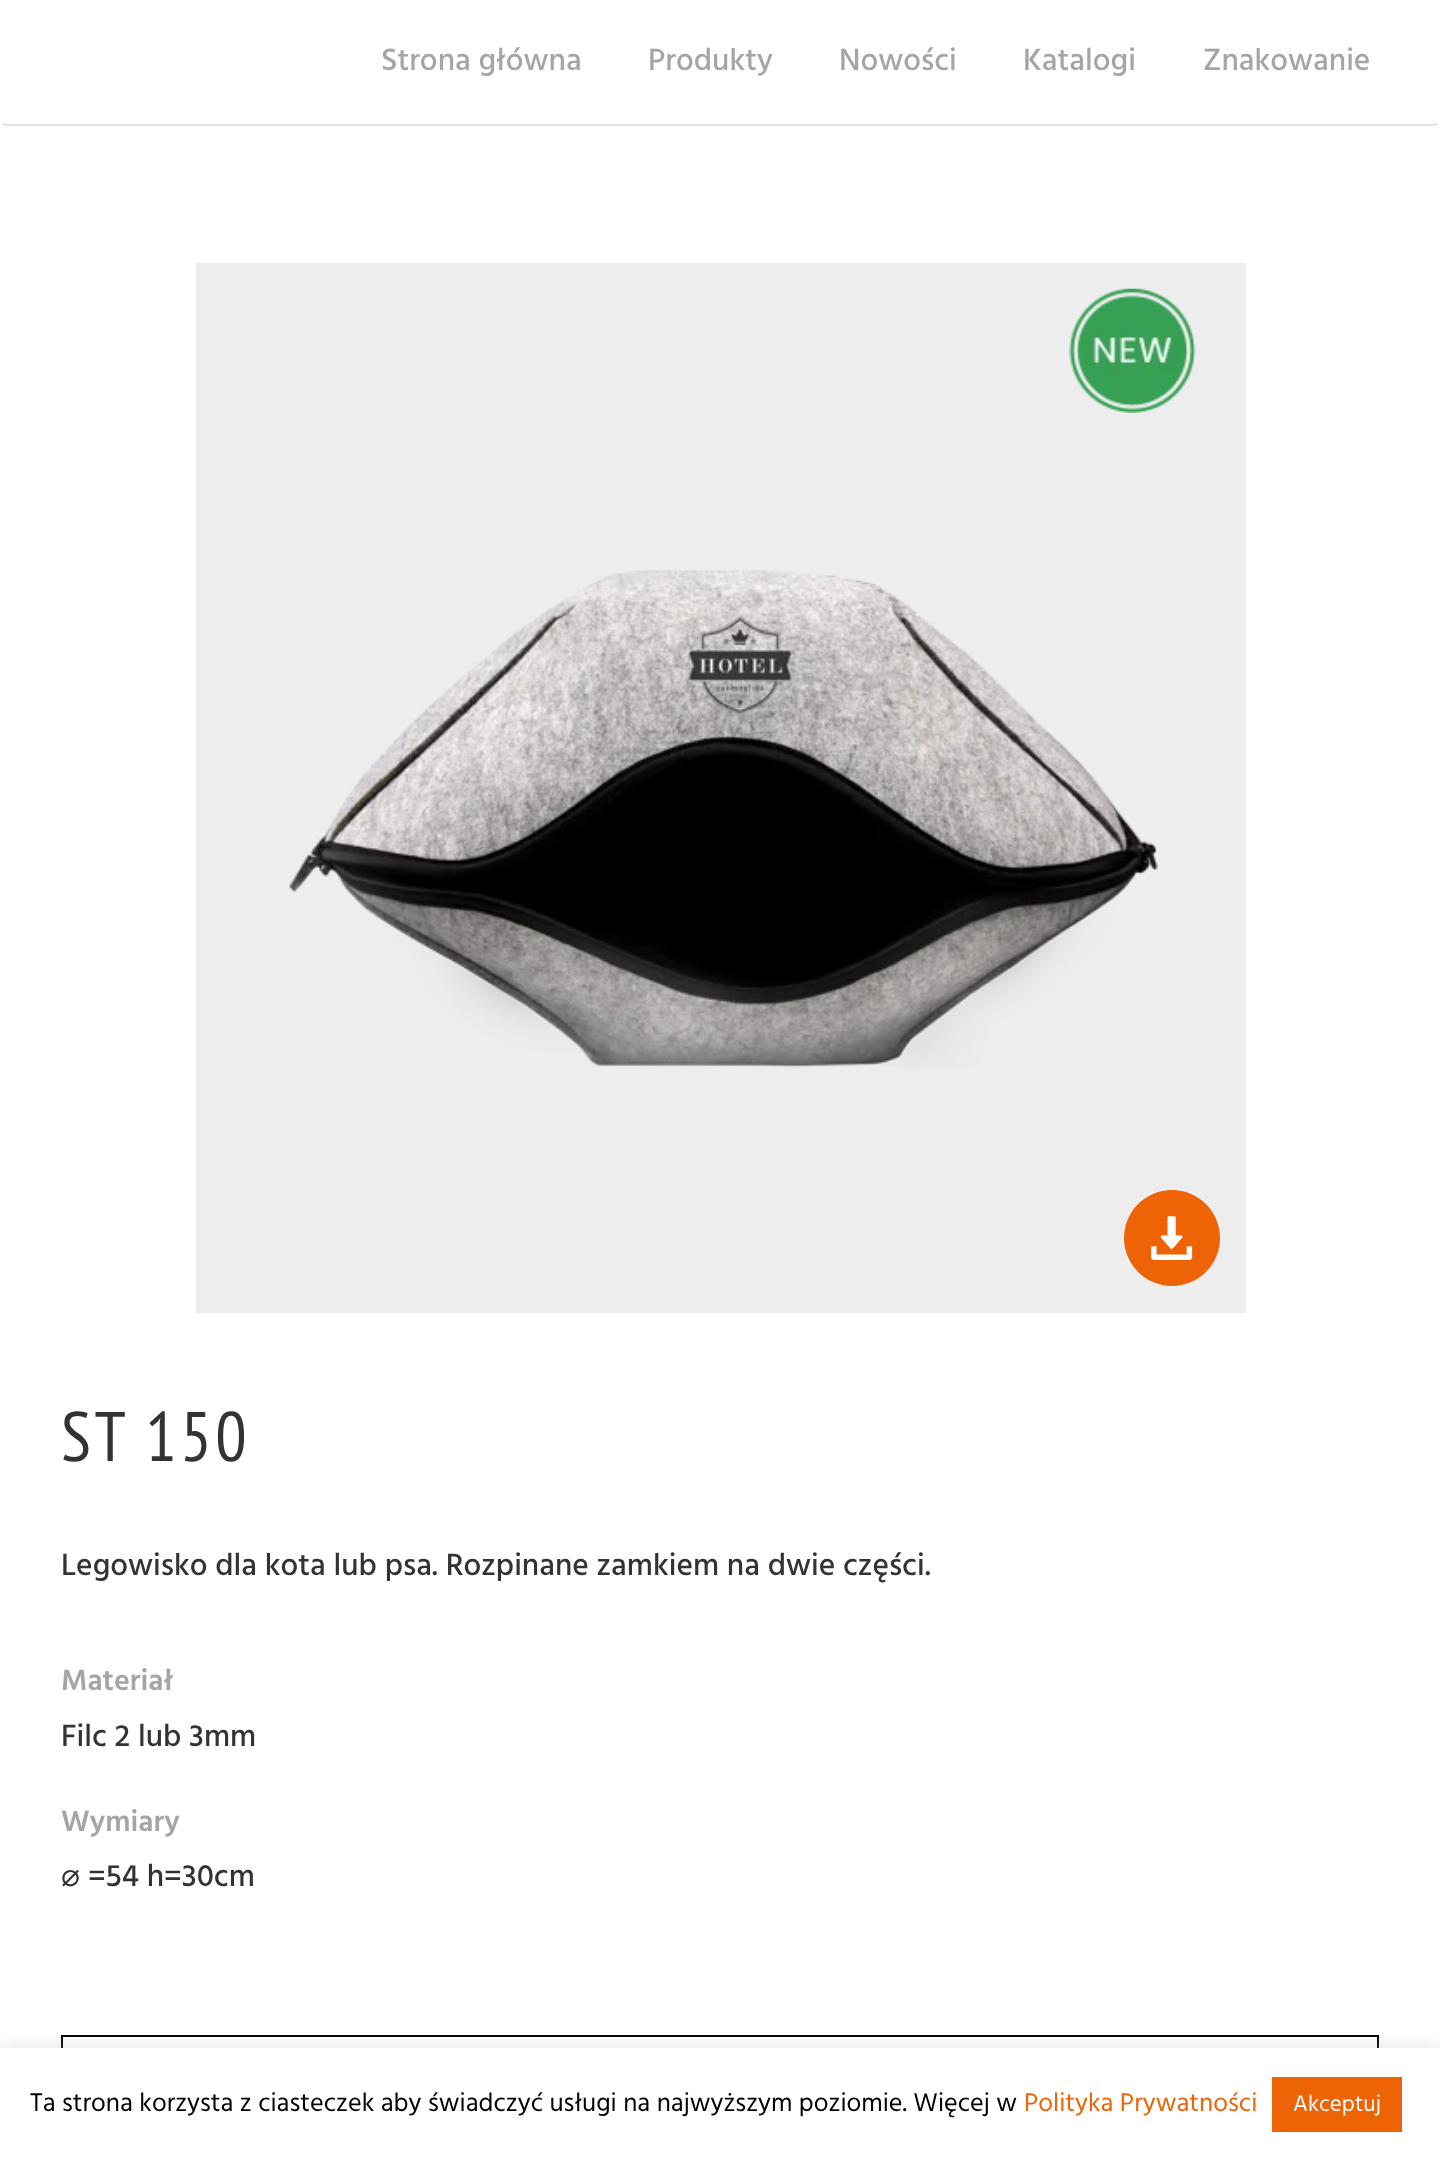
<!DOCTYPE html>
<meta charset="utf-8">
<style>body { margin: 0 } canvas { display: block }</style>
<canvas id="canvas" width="1440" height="2160"></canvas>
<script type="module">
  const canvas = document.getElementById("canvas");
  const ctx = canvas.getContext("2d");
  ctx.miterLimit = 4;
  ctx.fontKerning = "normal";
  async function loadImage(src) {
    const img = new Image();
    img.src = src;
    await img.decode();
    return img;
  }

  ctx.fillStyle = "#ffffff";
  ctx.fillRect(0, 0, 1440, 2160);
  ctx.beginPath();
  ctx.moveTo(1437.5, 123.5);
  ctx.bezierCurveTo(1436.5, 124.5, 1435, 125, 1433, 125);
  ctx.lineTo(7, 125);
  ctx.bezierCurveTo(5.5, 125, 4, 124.5, 2.5, 123.5);
  ctx.strokeStyle = "#e1e1e1";
  ctx.lineWidth = 1.8;
  ctx.stroke();
  ctx.font = "500 31.5px Hind";
  ctx.fillStyle = "#a5a5a5";
  ctx.fillText("Strona główna", 381, 70);
  ctx.fillText("Produkty", 648, 70);
  ctx.fillText("Nowości", 839, 70);
  ctx.fillText("Katalogi", 1023, 70);
  ctx.fillText("Znakowanie", 1203, 70);
  ctx.fillStyle = "#ededed";
  ctx.fillRect(196, 263, 1050, 1050);
  ctx.drawImage(await loadImage("img1.png"), 1069, 288, 127, 125);
  ctx.drawImage(await loadImage("img2.png"), 289, 570, 869, 498);
  ctx.fillStyle = "#ee6306";
  ctx.beginPath();
  ctx.arc(1172, 1238, 48, 0, Math.PI * 2);
  ctx.fill();
  ctx.drawImage(await loadImage("img3.png"), 1151, 1216, 42, 44);
  ctx.letterSpacing = "3.5px";
  ctx.font = "70px PT Sans Narrow";
  ctx.fillStyle = "#333333";
  ctx.fillText("ST 150", 61, 1461);
  ctx.letterSpacing = "0px";
  ctx.font = "500 31.5px Hind";
  ctx.fillText("Legowisko dla kota lub psa. Rozpinane zamkiem na dwie części.", 61, 1575);
  ctx.font = "600 30px Hind";
  ctx.fillStyle = "#a5a5a5";
  ctx.fillText("Materiał", 61, 1690);
  ctx.font = "500 31.5px Hind";
  ctx.fillStyle = "#333333";
  ctx.fillText("Filc 2 lub 3mm", 61, 1746);
  ctx.font = "600 30px Hind";
  ctx.fillStyle = "#a5a5a5";
  ctx.fillText("Wymiary", 61, 1831);
  ctx.font = "31.5px DejaVu Sans";
  ctx.fillStyle = "#333333";
  ctx.fillText("⌀", 61, 1886);
  ctx.font = "500 31.5px Hind";
  ctx.fillText("=54 h=30cm", 88, 1886);
  ctx.strokeStyle = "#000000";
  ctx.lineWidth = 2;
  ctx.strokeRect(62, 2036, 1316, 112);
  ctx.fillStyle = "rgba(172, 171, 171, 0.3)";
  ctx.filter = "blur(9px)";
  ctx.beginPath();
  ctx.rect(0, 2046, 1440, 114);
  ctx.fill();
  ctx.filter = "none";
  ctx.fillStyle = "#ffffff";
  ctx.fillRect(0, 2048, 1440, 112);
  ctx.font = "26.25px Hind";
  ctx.fillStyle = "#000000";
  ctx.fillText("Ta strona korzysta z ciasteczek aby świadczyć usługi na najwyższym poziomie. Więcej w", 30, 2111);
  ctx.fillStyle = "#ee6306";
  ctx.fillText("Polityka Prywatności", 1024, 2111);
  ctx.fillRect(1272, 2077, 130, 55);
  ctx.font = "23px Hind";
  ctx.fillStyle = "#ffffff";
  ctx.fillText("Akceptuj", 1293, 2111);
</script>
